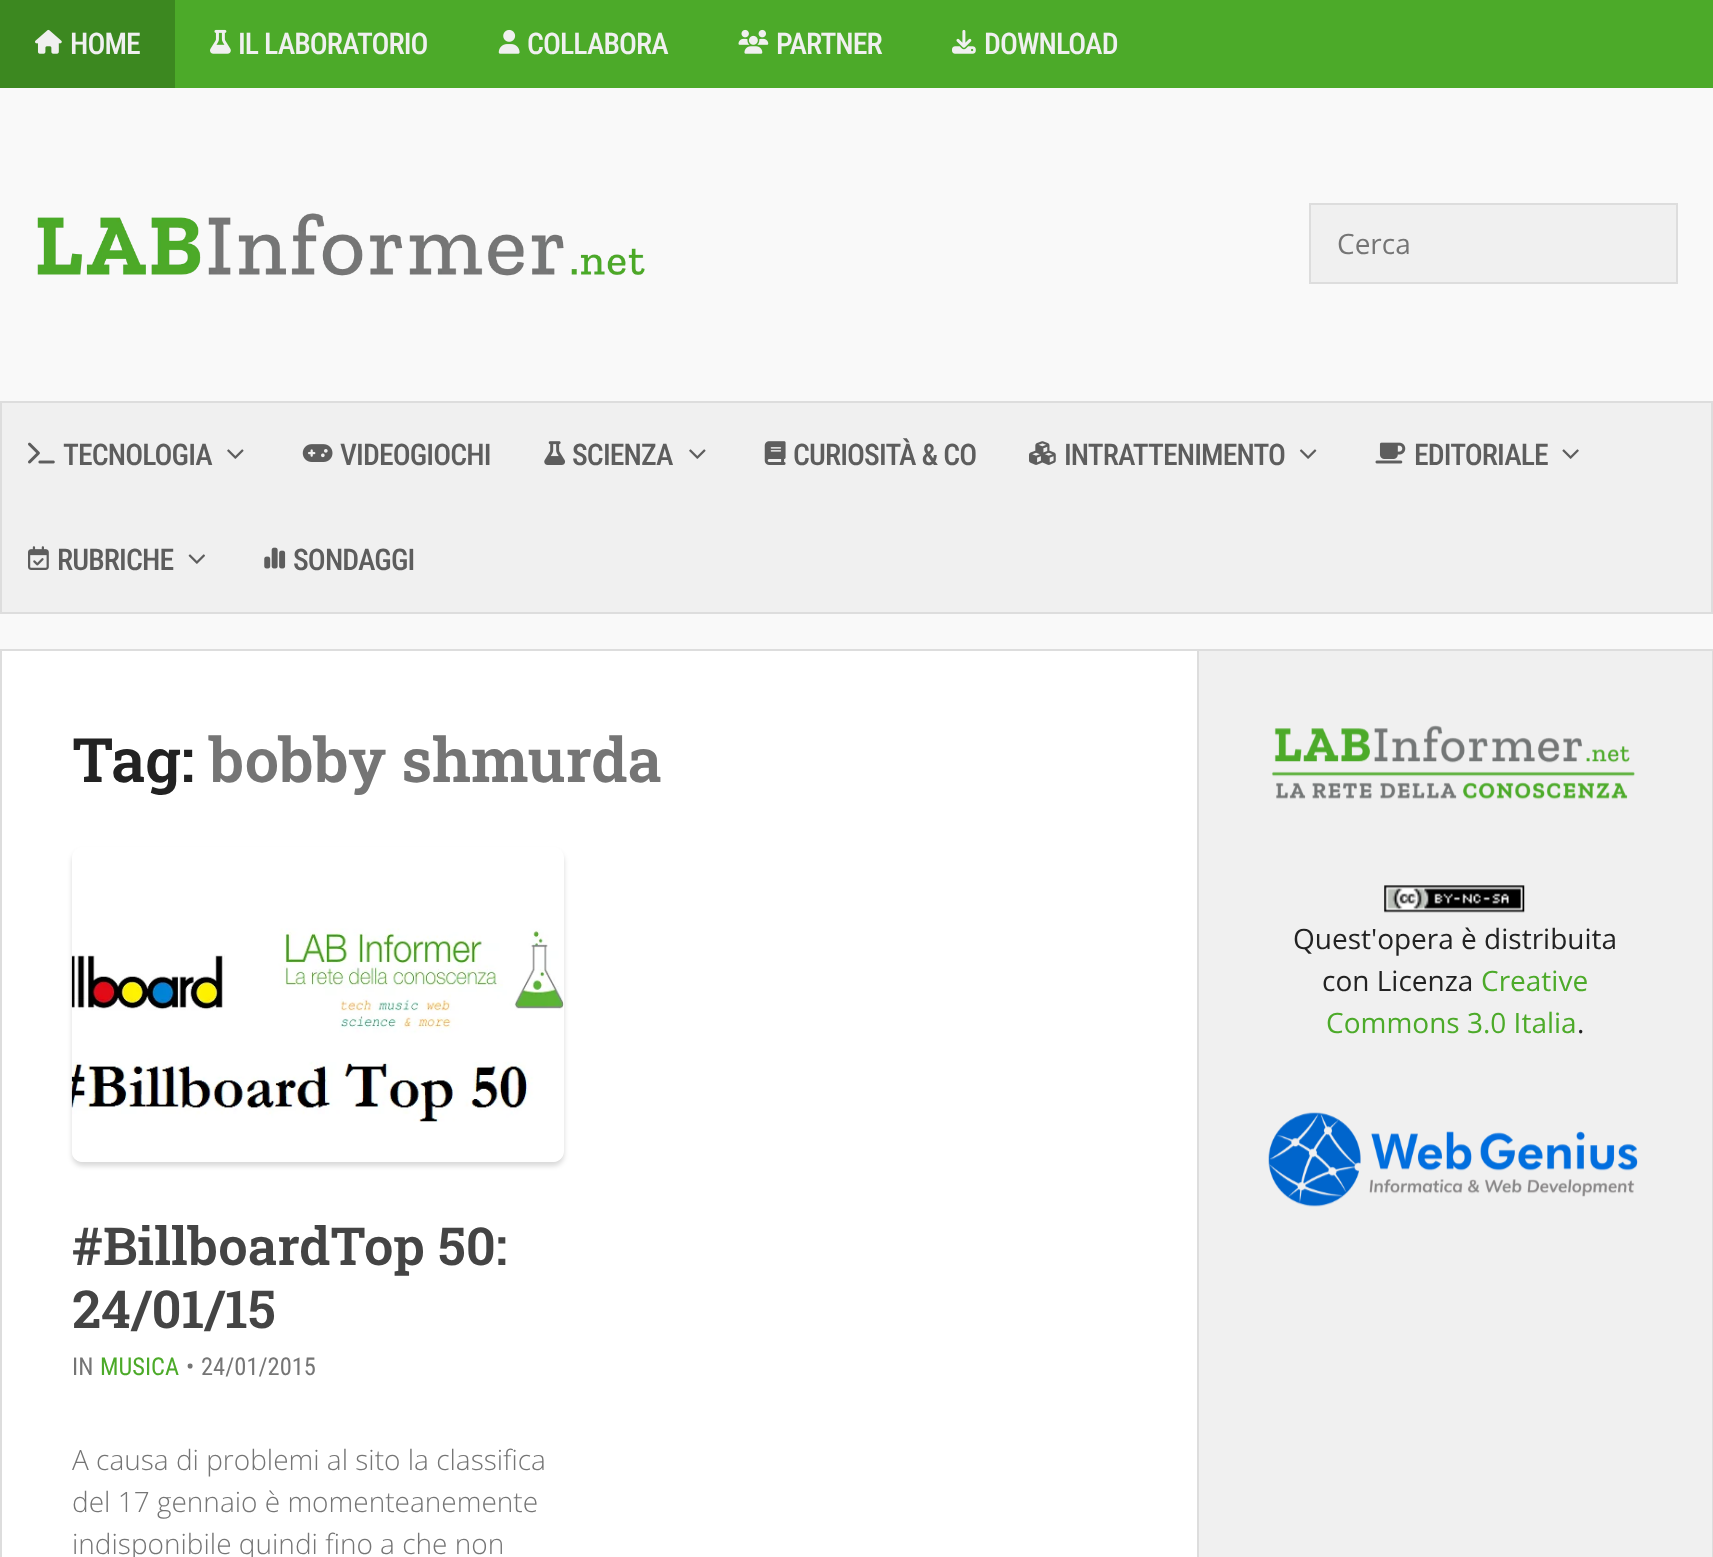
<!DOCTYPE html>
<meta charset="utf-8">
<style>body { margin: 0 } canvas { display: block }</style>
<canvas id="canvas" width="1713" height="1557"></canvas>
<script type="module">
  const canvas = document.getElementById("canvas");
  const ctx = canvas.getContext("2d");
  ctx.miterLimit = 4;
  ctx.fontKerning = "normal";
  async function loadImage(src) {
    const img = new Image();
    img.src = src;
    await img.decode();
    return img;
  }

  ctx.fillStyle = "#f9f9f9";
  ctx.fillRect(0, 0, 1713, 1557);
  ctx.fillStyle = "#4caa29";
  ctx.fillRect(175, 0, 1538, 88);
  ctx.fillStyle = "#3c8820";
  ctx.fillRect(0, 0, 175, 88);
  ctx.drawImage(await loadImage("img1.png"), 35, 29, 27, 25);
  ctx.letterSpacing = "-0.9px";
  ctx.font = "500 29.75px Roboto Condensed";
  ctx.fillStyle = "#f0f0f0";
  ctx.fillText("HOME", 70, 54);
  ctx.drawImage(await loadImage("img2.png"), 210, 29, 21, 25);
  ctx.fillText("IL LABORATORIO", 238, 54);
  ctx.drawImage(await loadImage("img3.png"), 498, 29, 22, 25);
  ctx.fillText("COLLABORA", 527, 54);
  ctx.drawImage(await loadImage("img4.png"), 738, 29, 31, 25);
  ctx.fillText("PARTNER", 776, 54);
  ctx.drawImage(await loadImage("img5.png"), 952, 29, 24, 25);
  ctx.fillText("DOWNLOAD", 984, 54);
  ctx.drawImage(await loadImage("img6.png"), 37, 213, 608, 63);
  ctx.beginPath();
  ctx.rect(1310, 204, 367, 79);
  ctx.fill();
  ctx.strokeStyle = "#dddddd";
  ctx.lineWidth = 2;
  ctx.stroke();
  ctx.letterSpacing = "0px";
  ctx.font = "28px Open Sans";
  ctx.fillStyle = "#757575";
  ctx.fillText("Cerca", 1337, 254);
  ctx.fillStyle = "#f0f0f0";
  ctx.beginPath();
  ctx.rect(1, 402, 1711, 211);
  ctx.fill();
  ctx.stroke();
  ctx.drawImage(await loadImage("img7.png"), 28, 442, 27, 22);
  ctx.letterSpacing = "-0.9px";
  ctx.font = "500 29.75px Roboto Condensed";
  ctx.fillStyle = "#5d5d5d";
  ctx.fillText("TECNOLOGIA", 63, 465);
  ctx.drawImage(await loadImage("img8.png"), 227, 449, 17, 10);
  ctx.drawImage(await loadImage("img9.png"), 302, 444, 31, 18);
  ctx.fillText("VIDEOGIOCHI", 340, 465);
  ctx.drawImage(await loadImage("img10.png"), 544, 441, 22, 24);
  ctx.fillText("SCIENZA", 572, 465);
  ctx.drawImage(await loadImage("img8.png"), 689, 449, 17, 10);
  ctx.drawImage(await loadImage("img11.png"), 764, 441, 22, 24);
  ctx.fillText("CURIOSITÀ & CO", 793, 465);
  ctx.drawImage(await loadImage("img12.png"), 1029, 441, 27, 24);
  ctx.fillText("INTRATTENIMENTO", 1064, 465);
  ctx.drawImage(await loadImage("img13.png"), 1299, 449, 18, 10);
  ctx.drawImage(await loadImage("img14.png"), 1375, 442, 31, 22);
  ctx.fillText("EDITORIALE", 1414, 465);
  ctx.drawImage(await loadImage("img15.png"), 1562, 449, 17, 10);
  ctx.drawImage(await loadImage("img16.png"), 28, 546, 21, 24);
  ctx.fillText("RUBRICHE", 57, 570);
  ctx.drawImage(await loadImage("img17.png"), 188, 554, 17, 10);
  ctx.drawImage(await loadImage("img18.png"), 264, 547, 22, 22);
  ctx.fillText("SONDAGGI", 293, 570);
  ctx.strokeRect(1, 650, 1711, 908);
  ctx.fillStyle = "#ffffff";
  ctx.fillRect(2, 651, 1195, 906);
  ctx.fillStyle = "#dddddd";
  ctx.fillRect(1197, 651, 2, 906);
  ctx.letterSpacing = "0px";
  ctx.font = "600 61.25px Roboto Slab";
  ctx.fillStyle = "#222222";
  ctx.fillText("Tag:", 72, 782);
  ctx.fillStyle = "#757575";
  ctx.fillText("bobby shmurda", 209, 782);
  ctx.save();
  ctx.beginPath();
  ctx.moveTo(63, 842);
  ctx.lineTo(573, 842);
  ctx.lineTo(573, 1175);
  ctx.lineTo(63, 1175);
  ctx.closePath();
  ctx.moveTo(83, 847);
  ctx.lineTo(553, 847);
  ctx.bezierCurveTo(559, 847, 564, 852, 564, 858);
  ctx.lineTo(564, 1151);
  ctx.bezierCurveTo(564, 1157, 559, 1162, 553, 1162);
  ctx.lineTo(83, 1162);
  ctx.bezierCurveTo(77, 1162, 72, 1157, 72, 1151);
  ctx.lineTo(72, 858);
  ctx.bezierCurveTo(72, 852, 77, 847, 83, 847);
  ctx.closePath();
  ctx.clip("evenodd");
  ctx.fillStyle = "rgba(0, 0, 0, 0.15)";
  ctx.filter = "blur(2.5px)";
  ctx.beginPath();
  ctx.roundRect(72, 851, 492, 315, 11);
  ctx.fill();
  ctx.filter = "none";
  ctx.restore();
  ctx.drawImage(await loadImage("img19.png"), 71, 928, 493, 234);
  ctx.font = "600 52.5px Roboto Slab";
  ctx.fillStyle = "#444444";
  ctx.fillText("#BillboardTop 50:", 72, 1265);
  ctx.fillText("24/01/15", 72, 1328);
  ctx.font = "24.5px Roboto Condensed";
  ctx.fillStyle = "#757575";
  ctx.fillText("IN", 72, 1375);
  ctx.fillStyle = "#4caa29";
  ctx.fillText("MUSICA", 100, 1375);
  ctx.fillStyle = "#757575";
  ctx.fillText("•", 186, 1375);
  ctx.fillText("24/01/2015", 201, 1375);
  ctx.font = "300 28px Open Sans";
  ctx.fillText("A causa di problemi al sito la classifica", 72, 1470);
  ctx.fillText("del 17 gennaio è momenteanemente", 72, 1512);
  ctx.fillText("indisponibile quindi fino a che non", 72, 1554);
  ctx.fillStyle = "#f0f0f0";
  ctx.fillRect(1199, 651, 513, 906);
  ctx.drawImage(await loadImage("img20.png"), 1271, 725, 364, 75);
  ctx.drawImage(await loadImage("img21.png"), 1384, 885, 141, 28);
  ctx.font = "28px Open Sans";
  ctx.fillStyle = "#222222";
  ctx.fillText("Quest'opera è distribuita", 1293, 949);
  ctx.fillText("con Licenza", 1322, 991);
  ctx.fillStyle = "#4caa29";
  ctx.fillText("Creative", 1481, 991);
  ctx.fillText("Commons 3.0 Italia", 1326, 1033);
  ctx.fillStyle = "#222222";
  ctx.fillText(".", 1577, 1033);
  ctx.drawImage(await loadImage("img22.png"), 1268, 1112, 370, 95);
</script>
